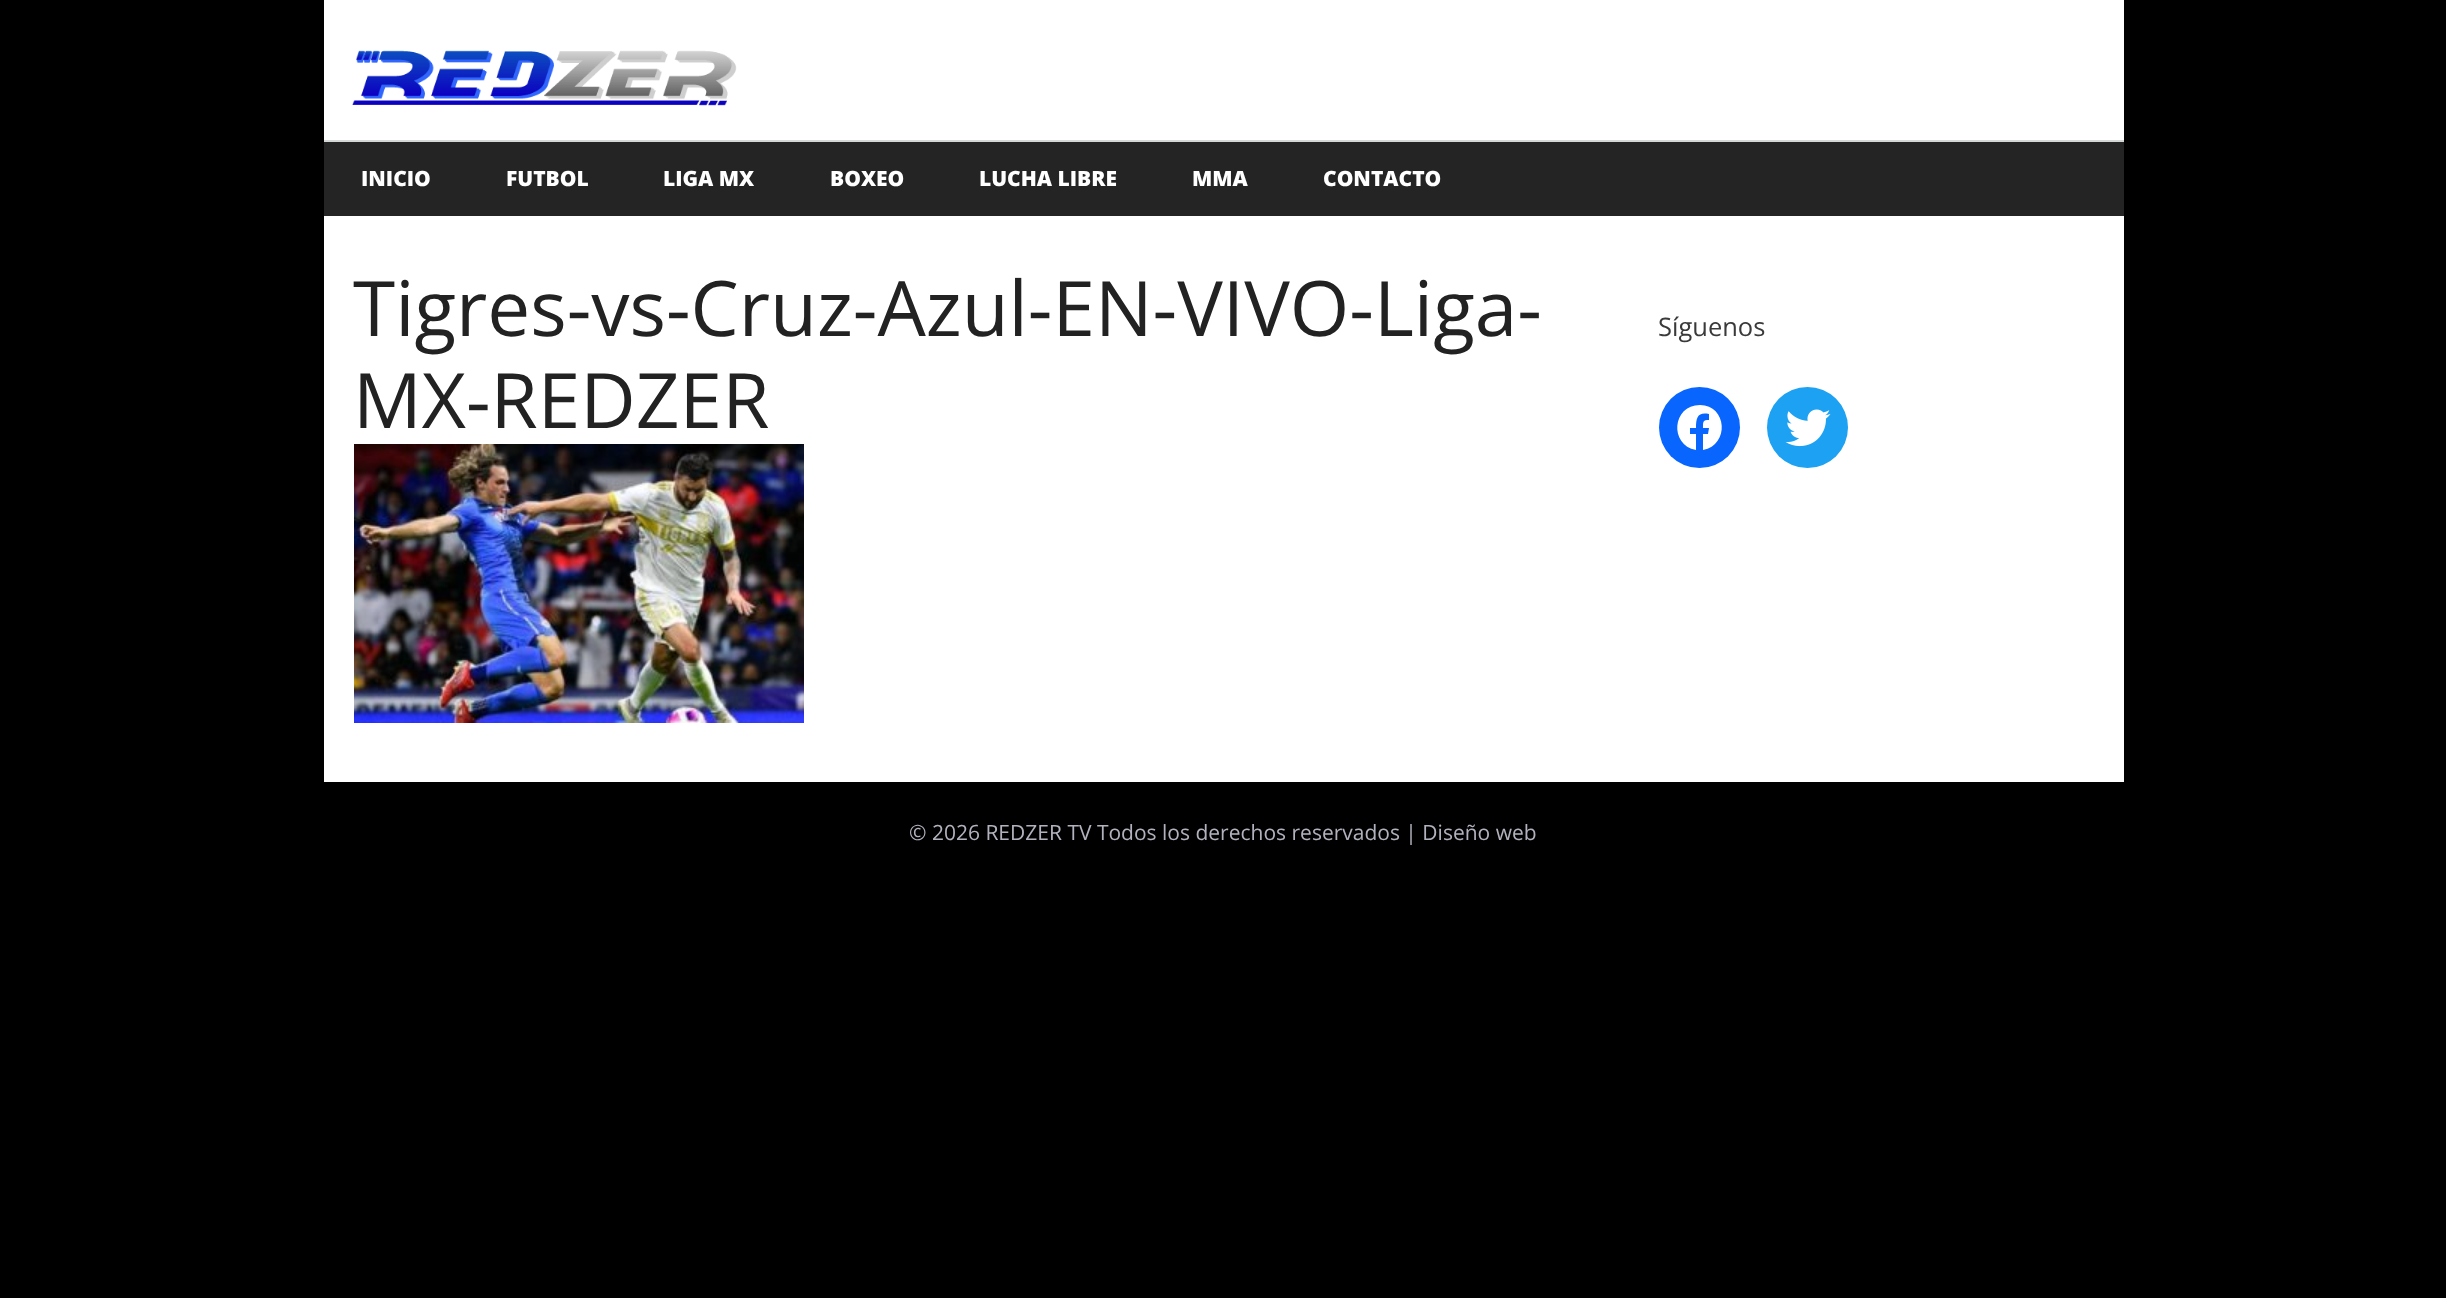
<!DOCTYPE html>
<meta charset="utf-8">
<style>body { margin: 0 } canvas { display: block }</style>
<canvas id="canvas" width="2446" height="1298"></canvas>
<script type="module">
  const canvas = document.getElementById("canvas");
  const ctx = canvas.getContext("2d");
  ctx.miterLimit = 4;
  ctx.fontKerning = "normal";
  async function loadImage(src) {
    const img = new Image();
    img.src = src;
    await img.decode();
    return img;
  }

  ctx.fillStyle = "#000000";
  ctx.fillRect(0, 0, 2446, 1298);
  ctx.fillStyle = "#ffffff";
  ctx.fillRect(324, 0, 1800, 140);
  ctx.drawImage(await loadImage("img1.png"), 352, 50, 385, 56);
  ctx.fillStyle = "#242424";
  ctx.fillRect(324, 142, 1800, 74);
  ctx.fillStyle = "#d4d7d8";
  ctx.fillRect(324, 140, 1800, 2);
  ctx.font = "800 21px Open Sans";
  ctx.fillStyle = "#ffffff";
  ctx.fillText("INICIO", 361, 186);
  ctx.fillText("FUTBOL", 506, 186);
  ctx.fillText("LIGA MX", 663, 186);
  ctx.fillText("BOXEO", 830, 186);
  ctx.fillText("LUCHA LIBRE", 979, 186);
  ctx.fillText("MMA", 1192, 186);
  ctx.fillText("CONTACTO", 1323, 186);
  ctx.fillRect(324, 216, 1800, 566);
  ctx.font = "76.5px Open Sans";
  ctx.fillStyle = "#222222";
  ctx.fillText("Tigres-vs-Cruz-Azul-EN-VIVO-Liga-", 353, 336);
  ctx.fillText("MX-REDZER", 353, 428);
  ctx.drawImage(await loadImage("img2.png"), 354, 444, 450, 279);
  ctx.font = "25.5px Open Sans";
  ctx.fillStyle = "#3a3a3a";
  ctx.fillText("Síguenos", 1658, 336);
  ctx.fillStyle = "#0866ff";
  ctx.beginPath();
  ctx.arc(1699.5, 427.5, 40.5, 0, Math.PI * 2);
  ctx.fill();
  ctx.fillStyle = "#ffffff";
  ctx.beginPath();
  ctx.moveTo(1700, 405);
  ctx.bezierCurveTo(1672, 405, 1669, 445, 1696, 450);
  ctx.lineTo(1696, 434);
  ctx.lineTo(1690, 434);
  ctx.lineTo(1690, 428);
  ctx.lineTo(1696, 428);
  ctx.bezierCurveTo(1696, 417, 1698, 412, 1709, 414);
  ctx.lineTo(1709, 420);
  ctx.bezierCurveTo(1703, 420, 1703, 421, 1703, 428);
  ctx.lineTo(1709, 428);
  ctx.lineTo(1708, 434);
  ctx.lineTo(1703, 434);
  ctx.lineTo(1703, 450);
  ctx.bezierCurveTo(1730, 445, 1727, 405, 1700, 405);
  ctx.closePath();
  ctx.fill();
  ctx.fillStyle = "#1da1f2";
  ctx.beginPath();
  ctx.arc(1807.5, 427.5, 40.5, 0, Math.PI * 2);
  ctx.fill();
  ctx.drawImage(await loadImage("img3.png"), 1785, 409, 46, 38);
  ctx.font = "21px Open Sans";
  ctx.fillStyle = "#b2b2be";
  ctx.fillText("© 2026 REDZER TV Todos los derechos reservados | Diseño web", 909, 840);
</script>
